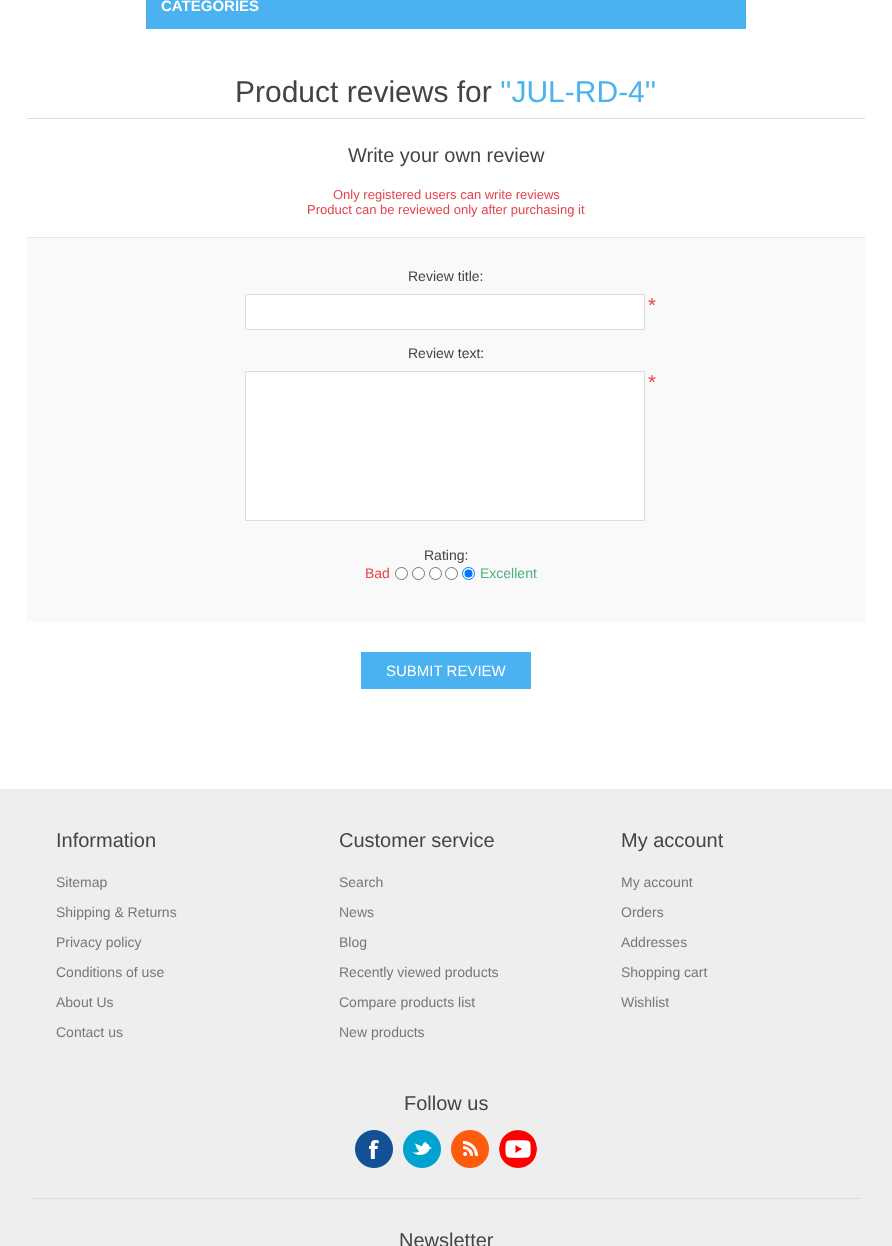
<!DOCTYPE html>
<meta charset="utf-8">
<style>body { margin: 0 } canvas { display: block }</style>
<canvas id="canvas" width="892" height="1246"></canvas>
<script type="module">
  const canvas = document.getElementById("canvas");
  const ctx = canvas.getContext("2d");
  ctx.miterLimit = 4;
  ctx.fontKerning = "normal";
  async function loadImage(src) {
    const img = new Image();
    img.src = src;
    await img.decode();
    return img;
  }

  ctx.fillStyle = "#ffffff";
  ctx.fillRect(0, 0, 892, 1246);
  ctx.fillStyle = "#4ab2f1";
  ctx.fillRect(146, 0, 600, 29);
  ctx.font = "bold 15px Liberation Sans";
  ctx.fillStyle = "#ffffff";
  ctx.fillText("CATEGORIES", 161, 11);
  ctx.fillStyle = "#dddddd";
  ctx.fillRect(27, 118, 838, 1);
  ctx.font = "30px Liberation Sans";
  ctx.fillStyle = "#444444";
  ctx.fillText("Product reviews for", 235, 102);
  ctx.fillStyle = "#4ab2f1";
  ctx.fillText("''JUL-RD-4''", 500, 102);
  ctx.font = "20px Liberation Sans";
  ctx.fillStyle = "#444444";
  ctx.fillText("Write your own review", 348, 162);
  ctx.font = "13px Liberation Sans";
  ctx.fillStyle = "#e4434b";
  ctx.fillText("Only registered users can write reviews", 333, 199);
  ctx.fillText("Product can be reviewed only after purchasing it", 307, 214);
  ctx.fillStyle = "#f9f9f9";
  ctx.fillRect(27, 238, 838, 384);
  ctx.fillStyle = "#e6e6e6";
  ctx.fillRect(27, 237, 838, 1);
  ctx.font = "14px Liberation Sans";
  ctx.fillStyle = "#444444";
  ctx.fillText("Review title:", 408, 281);
  ctx.fillStyle = "#ffffff";
  ctx.beginPath();
  ctx.rect(245.5, 294.5, 399, 35);
  ctx.fill();
  ctx.strokeStyle = "#dddddd";
  ctx.stroke();
  ctx.font = "20px Liberation Sans";
  ctx.fillStyle = "#e4434b";
  ctx.fillText("*", 648, 312);
  ctx.font = "14px Liberation Sans";
  ctx.fillStyle = "#444444";
  ctx.fillText("Review text:", 408, 358);
  ctx.fillStyle = "#ffffff";
  ctx.beginPath();
  ctx.rect(245.5, 371.5, 399, 149);
  ctx.fill();
  ctx.stroke();
  ctx.font = "20px Liberation Sans";
  ctx.fillStyle = "#e4434b";
  ctx.fillText("*", 648, 389);
  ctx.font = "14px Liberation Sans";
  ctx.fillStyle = "#444444";
  ctx.fillText("Rating:", 424, 560);
  ctx.fillStyle = "#e4434b";
  ctx.fillText("Bad", 365, 578);
  ctx.fillStyle = "#ffffff";
  ctx.beginPath();
  ctx.arc(401.5, 573.5, 6, 0, Math.PI * 2);
  ctx.fill();
  ctx.strokeStyle = "#767676";
  ctx.stroke();
  ctx.beginPath();
  ctx.arc(418.5, 573.5, 6, 0, Math.PI * 2);
  ctx.fill();
  ctx.stroke();
  ctx.beginPath();
  ctx.arc(435.5, 573.5, 6, 0, Math.PI * 2);
  ctx.fill();
  ctx.stroke();
  ctx.beginPath();
  ctx.arc(451.5, 573.5, 6, 0, Math.PI * 2);
  ctx.fill();
  ctx.stroke();
  ctx.beginPath();
  ctx.arc(468.5, 573.5, 6, 0, Math.PI * 2);
  ctx.fill();
  ctx.strokeStyle = "#0075ff";
  ctx.stroke();
  ctx.fillStyle = "#0075ff";
  ctx.beginPath();
  ctx.arc(468.5, 573.5, 4, 0, Math.PI * 2);
  ctx.fill();
  ctx.fillStyle = "#4cb17c";
  ctx.fillText("Excellent", 480, 578);
  ctx.fillStyle = "#4ab2f1";
  ctx.fillRect(361, 652, 170, 37);
  ctx.font = "15px Liberation Sans";
  ctx.fillStyle = "#ffffff";
  ctx.fillText("SUBMIT REVIEW", 386, 676);
  ctx.fillStyle = "#eeeeee";
  ctx.fillRect(0, 789, 892, 457);
  ctx.font = "20px Liberation Sans";
  ctx.fillStyle = "#444444";
  ctx.fillText("Information", 56, 847);
  ctx.font = "14px Liberation Sans";
  ctx.fillStyle = "#777777";
  ctx.fillText("Sitemap", 56, 887);
  ctx.fillText("Shipping & Returns", 56, 917);
  ctx.fillText("Privacy policy", 56, 947);
  ctx.fillText("Conditions of use", 56, 977);
  ctx.fillText("About Us", 56, 1007);
  ctx.fillText("Contact us", 56, 1037);
  ctx.font = "20px Liberation Sans";
  ctx.fillStyle = "#444444";
  ctx.fillText("Customer service", 339, 847);
  ctx.font = "14px Liberation Sans";
  ctx.fillStyle = "#777777";
  ctx.fillText("Search", 339, 887);
  ctx.fillText("News", 339, 917);
  ctx.fillText("Blog", 339, 947);
  ctx.fillText("Recently viewed products", 339, 977);
  ctx.fillText("Compare products list", 339, 1007);
  ctx.fillText("New products", 339, 1037);
  ctx.font = "20px Liberation Sans";
  ctx.fillStyle = "#444444";
  ctx.fillText("My account", 621, 847);
  ctx.font = "14px Liberation Sans";
  ctx.fillStyle = "#777777";
  ctx.fillText("My account", 621, 887);
  ctx.fillText("Orders", 621, 917);
  ctx.fillText("Addresses", 621, 947);
  ctx.fillText("Shopping cart", 621, 977);
  ctx.fillText("Wishlist", 621, 1007);
  ctx.font = "20px Liberation Sans";
  ctx.fillStyle = "#444444";
  ctx.fillText("Follow us", 404, 1110);
  ctx.fillStyle = "#dddddd";
  ctx.fillRect(31, 1198, 830, 1);
  ctx.drawImage(await loadImage("img1.png"), 355, 1130, 38, 38);
  ctx.drawImage(await loadImage("img2.png"), 403, 1130, 38, 38);
  ctx.drawImage(await loadImage("img3.png"), 451, 1130, 38, 38);
  ctx.drawImage(await loadImage("img4.png"), 499, 1130, 38, 38);
  ctx.fillStyle = "#444444";
  ctx.fillText("Newsletter", 399, 1247);
</script>
